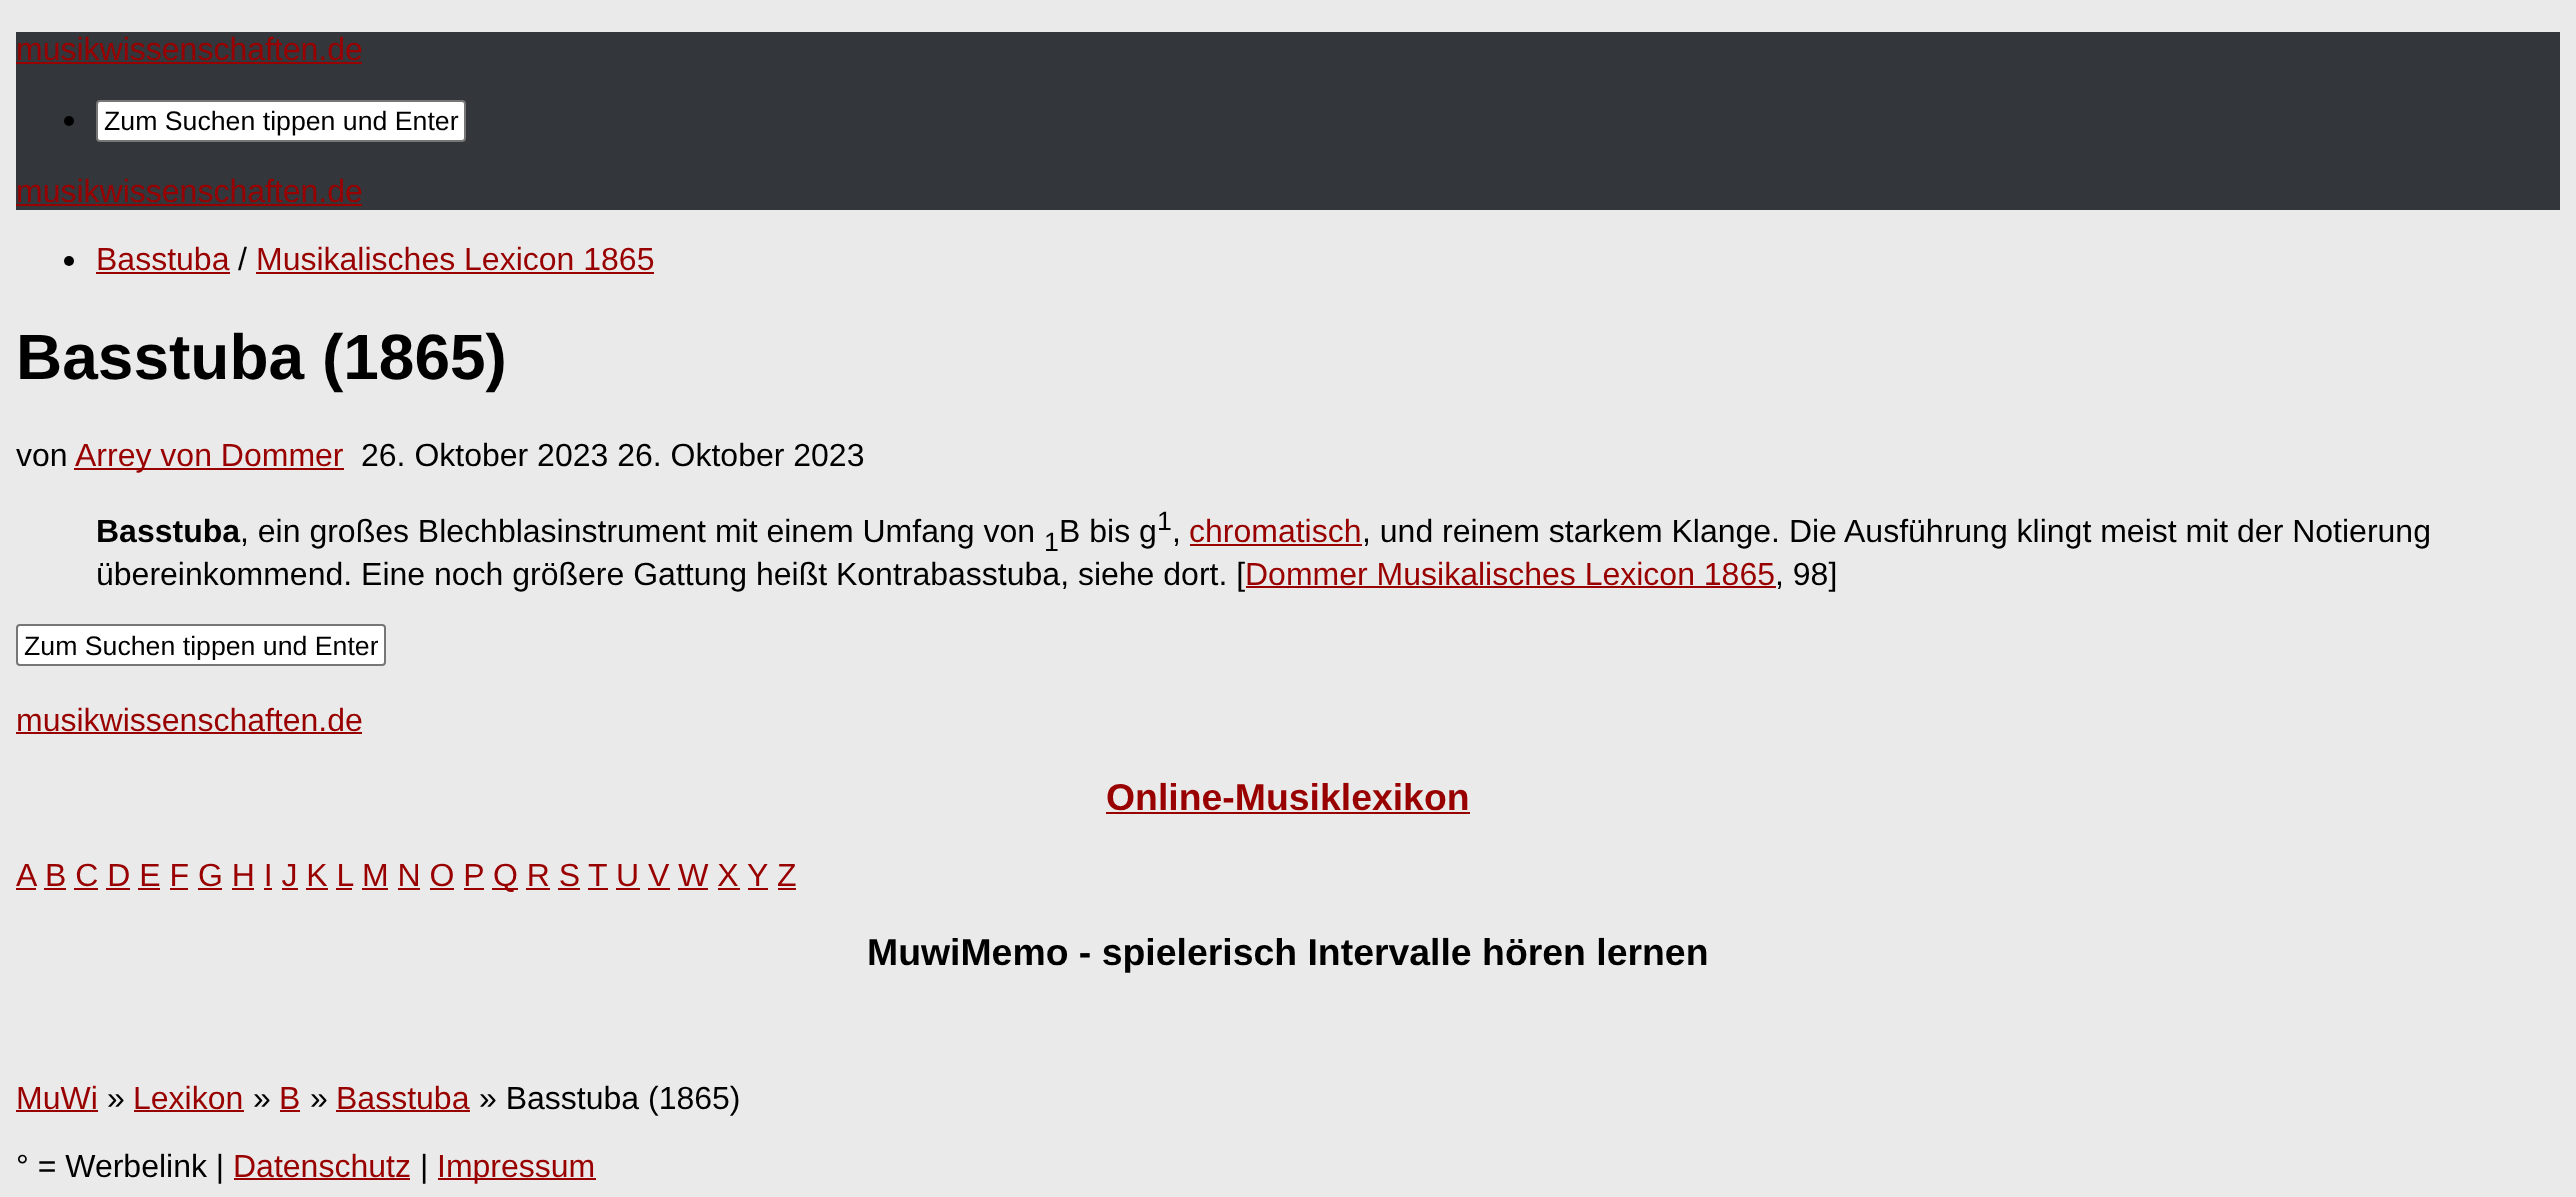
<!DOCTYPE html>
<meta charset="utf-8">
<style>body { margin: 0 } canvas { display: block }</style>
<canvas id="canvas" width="2576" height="1197"></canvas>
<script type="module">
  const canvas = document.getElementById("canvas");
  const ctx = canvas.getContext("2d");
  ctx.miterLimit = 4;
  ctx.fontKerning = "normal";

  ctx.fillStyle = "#eaeaea";
  ctx.fillRect(0, 0, 2576, 1197);
  ctx.fillStyle = "#33363b";
  ctx.fillRect(16, 32, 2544, 178);
  ctx.font = "32px Liberation Sans";
  ctx.fillStyle = "#990000";
  ctx.fillText("musikwissenschaften.de", 16, 60);
  ctx.fillRect(16, 62, 346, 2);
  ctx.fillStyle = "#000000";
  ctx.beginPath();
  ctx.arc(69, 121, 5, 0, Math.PI * 2);
  ctx.fill();
  ctx.fillStyle = "#ffffff";
  ctx.beginPath();
  ctx.roundRect(97, 101, 368, 40, 3);
  ctx.fill();
  ctx.strokeStyle = "#767676";
  ctx.lineWidth = 2;
  ctx.stroke();
  ctx.font = "26.7px Liberation Sans";
  ctx.fillStyle = "#000000";
  ctx.fillText("Zum Suchen tippen und Enter", 104, 130);
  ctx.font = "32px Liberation Sans";
  ctx.fillStyle = "#990000";
  ctx.fillText("musikwissenschaften.de", 16, 202);
  ctx.fillRect(16, 204, 346, 2);
  ctx.fillStyle = "#000000";
  ctx.beginPath();
  ctx.arc(69, 261, 5, 0, Math.PI * 2);
  ctx.fill();
  ctx.fillStyle = "#990000";
  ctx.fillText("Basstuba", 96, 270);
  ctx.fillRect(96, 272, 134, 2);
  ctx.fillStyle = "#000000";
  ctx.fillText("/", 238, 270);
  ctx.fillStyle = "#990000";
  ctx.fillText("Musikalisches Lexicon 1865", 256, 270);
  ctx.fillRect(256, 272, 398, 2);
  ctx.font = "bold 64px Liberation Sans";
  ctx.fillStyle = "#000000";
  ctx.fillText("Basstuba (1865)", 16, 379);
  ctx.font = "32px Liberation Sans";
  ctx.fillText("von", 16, 466);
  ctx.fillStyle = "#990000";
  ctx.fillRect(74, 468, 270, 2);
  ctx.fillText("Arrey von Dommer", 75, 466);
  ctx.fillStyle = "#000000";
  ctx.fillText("26. Oktober 2023 26. Oktober 2023", 361, 466);
  ctx.font = "bold 32px Liberation Sans";
  ctx.fillText("Basstuba", 96, 542);
  ctx.font = "32px Liberation Sans";
  ctx.fillText(", ein großes Blechblasinstrument mit einem Umfang von", 240, 542);
  ctx.font = "26.7px Liberation Sans";
  ctx.fillText("1", 1044, 551);
  ctx.font = "32px Liberation Sans";
  ctx.fillText("B bis g", 1059, 542);
  ctx.font = "26.7px Liberation Sans";
  ctx.fillText("1", 1157, 530);
  ctx.font = "32px Liberation Sans";
  ctx.fillText(",", 1172, 542);
  ctx.fillStyle = "#990000";
  ctx.fillText("chromatisch", 1189, 542);
  ctx.fillRect(1190, 544, 172, 2);
  ctx.fillStyle = "#000000";
  ctx.fillText(", und reinem starkem Klange. Die Ausführung klingt meist mit der Notierung", 1362, 542);
  ctx.fillText("übereinkommend. Eine noch größere Gattung heißt Kontrabasstuba, siehe dort. [", 96, 585);
  ctx.fillStyle = "#990000";
  ctx.fillText("Dommer Musikalisches Lexicon 1865", 1245, 585);
  ctx.fillStyle = "#000000";
  ctx.fillText(", 98]", 1775, 585);
  ctx.fillStyle = "#990000";
  ctx.fillRect(1246, 586, 530, 2);
  ctx.fillStyle = "#ffffff";
  ctx.beginPath();
  ctx.roundRect(17, 625, 368, 40, 3);
  ctx.fill();
  ctx.stroke();
  ctx.save();
  ctx.beginPath();
  ctx.rect(24, 630, 354, 30);
  ctx.clip();
  ctx.font = "26.7px Liberation Sans";
  ctx.fillStyle = "#000000";
  ctx.fillText("Zum Suchen tippen und Enter", 24, 655);
  ctx.restore();
  ctx.fillStyle = "#990000";
  ctx.fillText("musikwissenschaften.de", 16, 731);
  ctx.fillRect(16, 732, 346, 2);
  ctx.font = "bold 37.4px Liberation Sans";
  ctx.fillText("Online-Musiklexikon", 1106, 810);
  ctx.fillRect(1106, 812, 364, 2);
  ctx.font = "32px Liberation Sans";
  ctx.fillText("A", 16, 886);
  ctx.fillRect(16, 888, 20, 2);
  ctx.fillText("B C D E F G H I J K L", 45, 886);
  ctx.fillRect(44, 888, 22, 2);
  ctx.fillText("M N O P", 362, 886);
  ctx.fillRect(362, 888, 26, 2);
  ctx.fillRect(492, 888, 26, 2);
  ctx.fillText("Q R S", 493, 886);
  ctx.fillText("T", 588, 886);
  ctx.fillRect(588, 888, 20, 2);
  ctx.fillText("U V W X", 616, 886);
  ctx.fillRect(616, 888, 24, 2);
  ctx.fillText("Y", 747, 886);
  ctx.fillRect(748, 888, 20, 2);
  ctx.fillText("Z", 777, 886);
  ctx.fillRect(778, 888, 18, 2);
  ctx.fillRect(74, 888, 24, 2);
  ctx.fillRect(106, 888, 24, 2);
  ctx.fillRect(138, 888, 22, 2);
  ctx.fillRect(170, 888, 18, 2);
  ctx.fillRect(198, 888, 24, 2);
  ctx.fillRect(232, 888, 22, 2);
  ctx.fillRect(264, 888, 8, 2);
  ctx.fillRect(282, 888, 16, 2);
  ctx.fillRect(306, 888, 22, 2);
  ctx.fillRect(336, 888, 16, 2);
  ctx.fillRect(398, 888, 22, 2);
  ctx.fillRect(430, 888, 24, 2);
  ctx.fillRect(464, 888, 20, 2);
  ctx.fillRect(526, 888, 24, 2);
  ctx.fillRect(558, 888, 22, 2);
  ctx.fillRect(648, 888, 22, 2);
  ctx.fillRect(678, 888, 30, 2);
  ctx.fillRect(718, 888, 22, 2);
  ctx.font = "bold 37.4px Liberation Sans";
  ctx.fillStyle = "#000000";
  ctx.fillText("MuwiMemo - spielerisch Intervalle hören lernen", 867, 965);
  ctx.font = "32px Liberation Sans";
  ctx.fillStyle = "#990000";
  ctx.fillText("MuWi", 16, 1109);
  ctx.fillRect(16, 1110, 82, 2);
  ctx.fillStyle = "#000000";
  ctx.fillText("»", 107, 1109);
  ctx.fillStyle = "#990000";
  ctx.fillText("Lexikon", 133, 1109);
  ctx.fillRect(134, 1110, 110, 2);
  ctx.fillStyle = "#000000";
  ctx.fillText("»", 253, 1109);
  ctx.fillStyle = "#990000";
  ctx.fillText("B", 279, 1109);
  ctx.fillRect(280, 1110, 20, 2);
  ctx.fillStyle = "#000000";
  ctx.fillText("»", 310, 1109);
  ctx.fillStyle = "#990000";
  ctx.fillText("Basstuba", 336, 1109);
  ctx.fillRect(336, 1110, 134, 2);
  ctx.fillStyle = "#000000";
  ctx.fillText("» Basstuba (1865)", 479, 1109);
  ctx.fillText("° = Werbelink |", 16, 1177);
  ctx.fillStyle = "#990000";
  ctx.fillText("Datenschutz", 233, 1177);
  ctx.fillRect(234, 1178, 176, 2);
  ctx.fillStyle = "#000000";
  ctx.fillText("|", 420, 1177);
  ctx.fillStyle = "#990000";
  ctx.fillRect(438, 1178, 158, 2);
  ctx.fillText("Impressum", 437, 1177);
</script>
